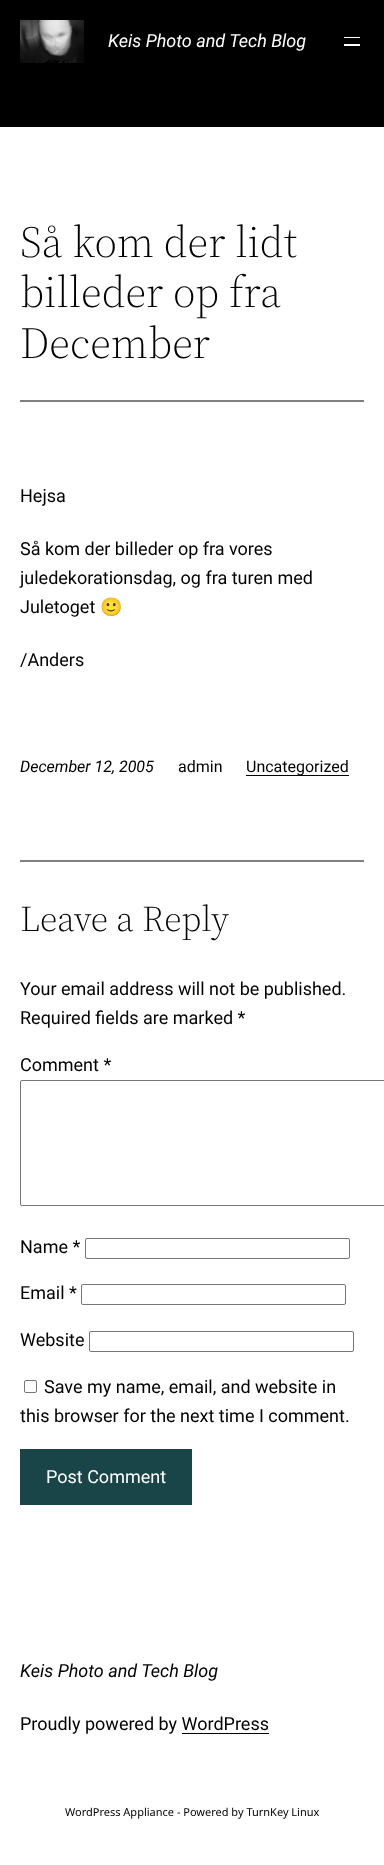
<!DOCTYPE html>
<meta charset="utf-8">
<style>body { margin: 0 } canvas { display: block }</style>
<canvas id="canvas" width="384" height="1865"></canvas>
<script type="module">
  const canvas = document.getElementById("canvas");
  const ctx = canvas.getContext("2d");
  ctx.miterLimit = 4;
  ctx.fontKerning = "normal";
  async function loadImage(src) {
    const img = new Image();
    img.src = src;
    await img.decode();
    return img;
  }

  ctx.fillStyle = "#ffffff";
  ctx.fillRect(0, 0, 384, 1865);
  ctx.fillStyle = "#000000";
  ctx.fillRect(0, 0, 384, 127);
  ctx.drawImage(await loadImage("img1.png"), 20, 20, 64, 43);
  ctx.font = "italic 18px Roboto";
  ctx.fillStyle = "#ffffff";
  ctx.fillText("Keis Photo and Tech Blog", 108, 47);
  ctx.fillRect(344, 37, 16, 1);
  ctx.fillRect(344, 44, 16, 2);
  ctx.font = "300 44px 'Source Serif 4'";
  ctx.fillStyle = "#000000";
  ctx.fillText("Så kom der lidt", 20, 257);
  ctx.fillText("billeder op fra", 20, 307);
  ctx.fillText("December", 20, 358);
  ctx.fillStyle = "#808080";
  ctx.fillRect(20, 400, 344, 2);
  ctx.font = "18px Roboto";
  ctx.fillStyle = "#000000";
  ctx.fillText("Hejsa", 20, 502);
  ctx.fillText("Så kom der billeder op fra vores", 20, 555);
  ctx.fillText("juledekorationsdag, og fra turen med", 20, 584);
  ctx.fillText("Juletoget", 20, 613);
  ctx.font = "18px Noto Color Emoji";
  ctx.fillText("🙂", 100, 613);
  ctx.font = "18px Roboto";
  ctx.fillText("/Anders", 20, 666);
  ctx.font = "italic 16px Roboto";
  ctx.fillText("December 12, 2005", 20, 772);
  ctx.font = "16px Roboto";
  ctx.fillText("admin", 178, 772);
  ctx.fillRect(246, 775, 103, 1);
  ctx.fillText("Uncategorized", 246, 772);
  ctx.fillStyle = "#808080";
  ctx.fillRect(20, 860, 344, 2);
  ctx.font = "300 36px 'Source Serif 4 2'";
  ctx.fillStyle = "#000000";
  ctx.fillText("Leave a Reply", 20, 931);
  ctx.font = "18px Roboto";
  ctx.fillText("Your email address will not be published.", 20, 995);
  ctx.fillText("Required fields are marked *", 20, 1024);
  ctx.fillText("Comment *", 20, 1071);
  ctx.beginPath();
  ctx.roundRect(20.5, 1080.5, 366, 125, 1.5);
  ctx.strokeStyle = "#767676";
  ctx.stroke();
  ctx.fillText("Name *", 20, 1253);
  ctx.beginPath();
  ctx.roundRect(85.5, 1238.5, 264, 20, 1.5);
  ctx.stroke();
  ctx.fillText("Email *", 20, 1299);
  ctx.beginPath();
  ctx.roundRect(81.5, 1284.5, 264, 20, 1.5);
  ctx.stroke();
  ctx.fillText("Website", 20, 1346);
  ctx.beginPath();
  ctx.roundRect(89.5, 1331.5, 264, 20, 1.5);
  ctx.stroke();
  ctx.beginPath();
  ctx.roundRect(24.5, 1380.5, 12, 12, 1.5);
  ctx.stroke();
  ctx.fillText("Save my name, email, and website in", 44, 1393);
  ctx.fillText("this browser for the next time I comment.", 20, 1422);
  ctx.fillStyle = "#1a4548";
  ctx.fillRect(20, 1449, 172, 56);
  ctx.fillStyle = "#ffffff";
  ctx.fillText("Post Comment", 46, 1483);
  ctx.font = "italic 18px Roboto";
  ctx.fillStyle = "#000000";
  ctx.fillText("Keis Photo and Tech Blog", 20, 1677);
  ctx.font = "18px Roboto";
  ctx.fillText("Proudly powered by WordPress", 20, 1730);
  ctx.fillRect(182, 1733, 87, 1);
  ctx.font = "11px Noto Sans";
  ctx.fillText("WordPress Appliance - Powered by TurnKey Linux", 65, 1816);
</script>
